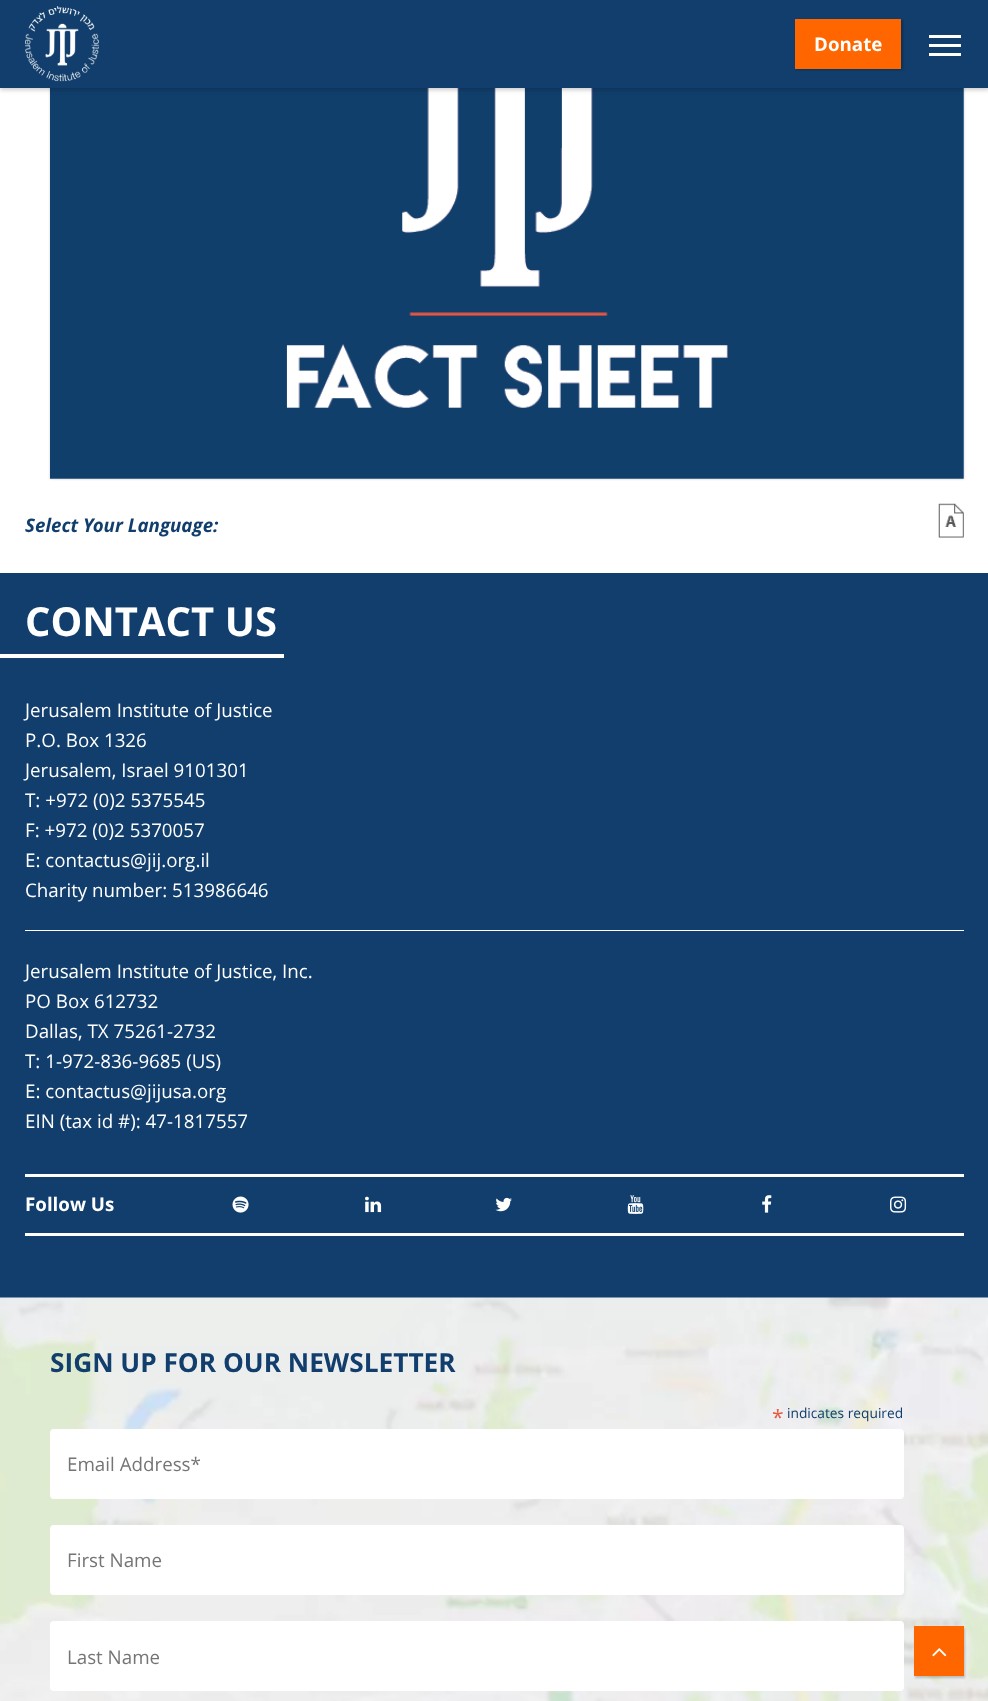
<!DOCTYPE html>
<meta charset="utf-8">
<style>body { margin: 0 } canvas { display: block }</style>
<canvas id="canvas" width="988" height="1701"></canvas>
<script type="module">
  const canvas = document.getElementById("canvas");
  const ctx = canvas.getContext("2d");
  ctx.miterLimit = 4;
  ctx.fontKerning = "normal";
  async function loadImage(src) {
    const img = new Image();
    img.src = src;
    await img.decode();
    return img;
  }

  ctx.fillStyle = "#ffffff";
  ctx.fillRect(0, 0, 988, 1701);
  ctx.fillStyle = "rgba(0, 0, 0, 0.2)";
  ctx.filter = "blur(1px)";
  ctx.beginPath();
  ctx.rect(50, -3, 914, 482);
  ctx.fill();
  ctx.filter = "none";
  ctx.fillStyle = "#ffffff";
  ctx.fillRect(50, 88, 914, 391);
  ctx.drawImage(await loadImage("img2.png"), 50, 88, 914, 391);
  ctx.fillStyle = "rgba(0, 0, 0, 0.2)";
  ctx.filter = "blur(2px)";
  ctx.beginPath();
  ctx.rect(0, 3, 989, 87);
  ctx.fill();
  ctx.filter = "none";
  ctx.fillStyle = "#113e6c";
  ctx.fillRect(0, 0, 988, 88);
  ctx.drawImage(await loadImage("img1.png"), 25, 6, 74, 76);
  ctx.fillStyle = "rgba(0, 0, 0, 0.2)";
  ctx.filter = "blur(1px)";
  ctx.beginPath();
  ctx.rect(796, 20, 107, 50);
  ctx.fill();
  ctx.filter = "none";
  ctx.fillStyle = "#ff6600";
  ctx.fillRect(795, 19, 106, 50);
  ctx.font = "bold 18.75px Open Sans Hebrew";
  ctx.fillStyle = "#ffffff";
  ctx.fillText("Donate", 814, 51);
  ctx.fillRect(929, 35, 32, 3);
  ctx.fillRect(929, 44, 32, 3);
  ctx.fillRect(929, 53, 32, 3);
  ctx.font = "italic bold 18.75px Open Sans Hebrew";
  ctx.fillStyle = "#113e6c";
  ctx.fillText("Select Your Language:", 25, 532);
  ctx.drawImage(await loadImage("img3.png"), 938, 503, 26, 35);
  ctx.fillRect(0, 573, 988, 725);
  ctx.font = "bold 40px Open Sans Hebrew";
  ctx.fillStyle = "#ffffff";
  ctx.fillText("CONTACT US", 25, 636);
  ctx.fillRect(0, 654, 284, 4);
  ctx.font = "18.75px Open Sans Hebrew";
  ctx.fillText("Jerusalem Institute of Justice", 25, 717);
  ctx.fillText("P.O. Box 1326", 25, 747);
  ctx.fillText("Jerusalem, Israel 9101301", 25, 777);
  ctx.fillText("T: +972 (0)2 5375545", 25, 807);
  ctx.fillText("F: +972 (0)2 5370057", 25, 837);
  ctx.fillText("E: contactus@jij.org.il", 25, 867);
  ctx.fillText("Charity number: 513986646", 25, 897);
  ctx.fillRect(25, 930, 939, 1);
  ctx.fillText("Jerusalem Institute of Justice, Inc.", 25, 978);
  ctx.fillText("PO Box 612732", 25, 1008);
  ctx.fillText("Dallas, TX 75261-2732", 25, 1038);
  ctx.fillText("T: 1-972-836-9685 (US)", 25, 1068);
  ctx.fillText("E: contactus@jijusa.org", 25, 1098);
  ctx.fillText("EIN (tax id #): 47-1817557", 25, 1128);
  ctx.fillRect(175, 1174, 789, 3);
  ctx.fillRect(175, 1233, 789, 3);
  ctx.drawImage(await loadImage("img4.png"), 890, 1196, 17, 17);
  ctx.fillRect(25, 1174, 150, 3);
  ctx.fillRect(25, 1233, 150, 3);
  ctx.font = "bold 18.75px Open Sans Hebrew";
  ctx.fillText("Follow Us", 25, 1211);
  ctx.drawImage(await loadImage("img5.png"), 232, 1196, 17, 17);
  ctx.drawImage(await loadImage("img6.png"), 365, 1196, 17, 17);
  ctx.drawImage(await loadImage("img7.png"), 495, 1197, 17, 15);
  ctx.drawImage(await loadImage("img8.png"), 627, 1195, 17, 19);
  ctx.drawImage(await loadImage("img9.png"), 762, 1195, 10, 18);
  ctx.drawImage(await loadImage("img10.png"), 0, 1297, 988, 404);
  ctx.font = "bold 26.25px Open Sans Hebrew";
  ctx.fillStyle = "#113e6c";
  ctx.fillText("SIGN UP FOR OUR NEWSLETTER", 50, 1372);
  ctx.font = "21px Open Sans Hebrew";
  ctx.fillStyle = "#e85c41";
  ctx.fillText("*", 772, 1425);
  ctx.font = "13.75px Open Sans Hebrew";
  ctx.fillStyle = "#113e6c";
  ctx.fillText("indicates required", 787, 1418);
  ctx.fillStyle = "#ffffff";
  ctx.beginPath();
  ctx.roundRect(50, 1429, 854, 70, 4);
  ctx.fill();
  ctx.font = "18.75px Open Sans Hebrew";
  ctx.fillStyle = "#757575";
  ctx.fillText("Email Address*", 67, 1471);
  ctx.fillStyle = "#ffffff";
  ctx.beginPath();
  ctx.roundRect(50, 1525, 854, 70, 4);
  ctx.fill();
  ctx.fillStyle = "#757575";
  ctx.fillText("First Name", 67, 1567);
  ctx.fillStyle = "#ffffff";
  ctx.beginPath();
  ctx.roundRect(50, 1621, 854, 70, 4);
  ctx.fill();
  ctx.fillStyle = "#757575";
  ctx.fillText("Last Name", 67, 1664);
  ctx.fillStyle = "rgba(0, 0, 0, 0.2)";
  ctx.filter = "blur(1px)";
  ctx.beginPath();
  ctx.rect(915, 1628, 50, 50);
  ctx.fill();
  ctx.filter = "none";
  ctx.fillStyle = "#ff6600";
  ctx.fillRect(914, 1626, 50, 50);
  ctx.drawImage(await loadImage("img11.png"), 932, 1648, 15, 9);
</script>
